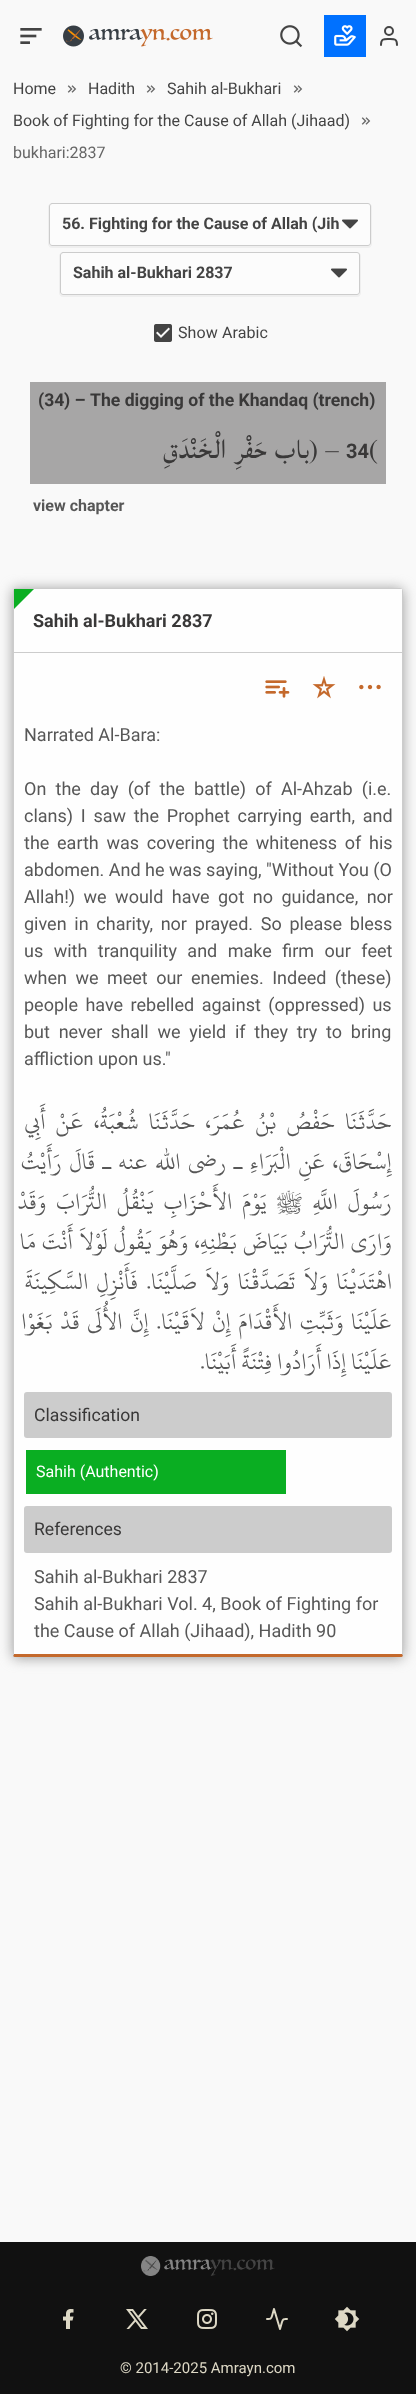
<!DOCTYPE html>
<meta charset="utf-8">
<style>body { margin: 0 } canvas { display: block }</style>
<canvas id="canvas" width="416" height="2394"></canvas>
<script type="module">
  const canvas = document.getElementById("canvas");
  const ctx = canvas.getContext("2d");
  ctx.miterLimit = 4;
  ctx.fontKerning = "normal";
  async function loadImage(src) {
    const img = new Image();
    img.src = src;
    await img.decode();
    return img;
  }

  ctx.fillStyle = "#f9f9f9";
  ctx.fillRect(0, 0, 416, 2394);
  ctx.drawImage(await loadImage("img1.png"), 20, 28, 22, 16);
  ctx.drawImage(await loadImage("img2.png"), 63, 25, 150, 22);
  ctx.drawImage(await loadImage("img3.png"), 280, 25, 23, 23);
  ctx.fillStyle = "#0071ff";
  ctx.fillRect(324, 15, 42, 42);
  ctx.drawImage(await loadImage("img4.png"), 334, 25, 22, 21);
  ctx.beginPath();
  ctx.moveTo(397, 45);
  ctx.bezierCurveTo(397, 38.5, 394.5, 39, 389, 39);
  ctx.bezierCurveTo(383.5, 39, 381, 38.5, 381, 45);
  ctx.strokeStyle = "#444444";
  ctx.lineWidth = 2;
  ctx.lineCap = "round";
  ctx.lineJoin = "round";
  ctx.stroke();
  ctx.beginPath();
  ctx.arc(389, 31, 4, 0, Math.PI * 2);
  ctx.stroke();
  ctx.font = "16px Roboto";
  ctx.fillStyle = "#444444";
  ctx.fillText("Home", 13, 94);
  ctx.drawImage(await loadImage("img5.png"), 67, 85, 10, 8);
  ctx.fillText("Hadith", 88, 94);
  ctx.drawImage(await loadImage("img5.png"), 146, 85, 10, 8);
  ctx.fillText("Sahih al-Bukhari", 167, 94);
  ctx.drawImage(await loadImage("img5.png"), 293, 85, 10, 8);
  ctx.fillText("Book of Fighting for the Cause of Allah (Jihaad)", 13, 126);
  ctx.drawImage(await loadImage("img5.png"), 361, 117, 10, 8);
  ctx.fillStyle = "#666666";
  ctx.fillText("bukhari:2837", 13, 158);
  ctx.fillStyle = "#efefef";
  ctx.beginPath();
  ctx.moveTo(52, 203);
  ctx.bezierCurveTo(50, 203, 48, 205, 48, 207);
  ctx.lineTo(48, 244);
  ctx.bezierCurveTo(48, 246, 50, 248, 52, 248);
  ctx.lineTo(368, 248);
  ctx.bezierCurveTo(370, 248, 372, 246, 372, 244);
  ctx.lineTo(372, 207);
  ctx.bezierCurveTo(372, 205, 370, 203, 368, 203);
  ctx.bezierCurveTo(370, 203, 371, 204, 371, 206);
  ctx.lineTo(371, 243);
  ctx.bezierCurveTo(371, 245, 370, 246, 368, 246);
  ctx.lineTo(52, 246);
  ctx.bezierCurveTo(50, 246, 49, 245, 49, 243);
  ctx.lineTo(49, 206);
  ctx.bezierCurveTo(49, 204, 50, 203, 52, 203);
  ctx.closePath();
  ctx.fill();
  ctx.fillStyle = "#fcfcfc";
  ctx.beginPath();
  ctx.roundRect(49, 203, 322, 43, 3);
  ctx.fill();
  ctx.drawImage(await loadImage("img6.png"), 342, 219, 16, 10);
  ctx.beginPath();
  ctx.roundRect(49.5, 203.5, 321, 42, 2.5);
  ctx.strokeStyle = "#cccccc";
  ctx.lineWidth = 1;
  ctx.lineJoin = "miter";
  ctx.stroke();
  ctx.font = "bold 16px Roboto";
  ctx.fillStyle = "#444444";
  ctx.fillText("56. Fighting for the Cause of Allah (Jih", 62, 229);
  ctx.fillStyle = "#efefef";
  ctx.beginPath();
  ctx.moveTo(63, 252);
  ctx.bezierCurveTo(61, 252, 59, 254, 59, 256);
  ctx.lineTo(59, 293);
  ctx.bezierCurveTo(59, 295, 61, 297, 63, 297);
  ctx.lineTo(357, 297);
  ctx.bezierCurveTo(359, 297, 361, 295, 361, 293);
  ctx.lineTo(361, 256);
  ctx.bezierCurveTo(361, 254, 359, 252, 357, 252);
  ctx.bezierCurveTo(359, 252, 360, 253, 360, 255);
  ctx.lineTo(360, 292);
  ctx.bezierCurveTo(360, 294, 359, 295, 357, 295);
  ctx.lineTo(63, 295);
  ctx.bezierCurveTo(61, 295, 60, 294, 60, 292);
  ctx.lineTo(60, 255);
  ctx.bezierCurveTo(60, 253, 61, 252, 63, 252);
  ctx.closePath();
  ctx.fill();
  ctx.fillStyle = "#fcfcfc";
  ctx.beginPath();
  ctx.roundRect(60, 252, 300, 43, 3);
  ctx.fill();
  ctx.drawImage(await loadImage("img6.png"), 331, 268, 16, 10);
  ctx.beginPath();
  ctx.roundRect(60.5, 252.5, 299, 42, 2.5);
  ctx.stroke();
  ctx.fillStyle = "#444444";
  ctx.fillText("Sahih al-Bukhari 2837", 73, 278);
  ctx.drawImage(await loadImage("img7.png"), 154, 324, 18, 18);
  ctx.letterSpacing = "0.1px";
  ctx.font = "16px 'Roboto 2'";
  ctx.fillText("Show Arabic", 178, 338);
  ctx.fillStyle = "#a7a6a6";
  ctx.fillRect(30, 382, 356, 102);
  ctx.letterSpacing = "0px";
  ctx.font = "bold 17.6px Roboto";
  ctx.fillStyle = "#393838";
  ctx.fillText("(34", 38, 406);
  ctx.fillText(") –", 64, 406);
  ctx.fillText("The digging of the Khandaq (trench)", 90, 406);
  ctx.direction = "rtl";
  ctx.font = "35px Lateef";
  ctx.fillText("باب حَفْرِ الْخَنْدَقِ", 309, 458);
  ctx.direction = "ltr";
  ctx.fillText(") –", 309, 458);
  ctx.font = "bold 20px Roboto";
  ctx.fillText("34", 346, 458);
  ctx.font = "35px Lateef";
  ctx.fillText("(", 369, 458);
  ctx.font = "bold 16px Roboto";
  ctx.fillStyle = "#575757";
  ctx.fillText("view chapter", 33, 511);
  ctx.fillStyle = "#999999";
  ctx.filter = "blur(6.5px)";
  ctx.beginPath();
  ctx.roundRect(13, 589, 390, 1069, 3);
  ctx.fill();
  ctx.filter = "none";
  ctx.fillStyle = "#fefefe";
  ctx.beginPath();
  ctx.moveTo(16, 589);
  ctx.lineTo(400, 589);
  ctx.bezierCurveTo(401, 589, 402, 590, 402, 591);
  ctx.lineTo(402, 1654);
  ctx.lineTo(14, 1654);
  ctx.lineTo(14, 591);
  ctx.bezierCurveTo(14, 590, 15, 589, 16, 589);
  ctx.closePath();
  ctx.fill();
  ctx.fillStyle = "#cccccc";
  ctx.beginPath();
  ctx.moveTo(16, 588);
  ctx.lineTo(14, 589);
  ctx.lineTo(15, 590);
  ctx.lineTo(16, 589);
  ctx.lineTo(400, 589);
  ctx.lineTo(401, 590);
  ctx.lineTo(402, 589);
  ctx.lineTo(400, 588);
  ctx.closePath();
  ctx.fill();
  ctx.beginPath();
  ctx.moveTo(403, 1654);
  ctx.lineTo(403, 591);
  ctx.lineTo(402, 589);
  ctx.lineTo(401, 590);
  ctx.lineTo(402, 591);
  ctx.lineTo(402, 1654);
  ctx.lineTo(403, 1656);
  ctx.closePath();
  ctx.fill();
  ctx.fillStyle = "#c4692c";
  ctx.beginPath();
  ctx.moveTo(16, 1657);
  ctx.lineTo(400, 1657);
  ctx.bezierCurveTo(401, 1657, 402, 1657, 403, 1656);
  ctx.lineTo(402, 1654);
  ctx.lineTo(14, 1654);
  ctx.lineTo(13, 1656);
  ctx.bezierCurveTo(14, 1657, 15, 1657, 16, 1657);
  ctx.closePath();
  ctx.fill();
  ctx.fillStyle = "#cccccc";
  ctx.beginPath();
  ctx.moveTo(13, 591);
  ctx.lineTo(13, 1654);
  ctx.lineTo(13, 1656);
  ctx.lineTo(14, 1654);
  ctx.lineTo(14, 591);
  ctx.lineTo(15, 590);
  ctx.lineTo(14, 589);
  ctx.closePath();
  ctx.fill();
  ctx.fillStyle = "#fefefe";
  ctx.fillRect(14, 589, 388, 2);
  ctx.fillStyle = "#cccccc";
  ctx.fillRect(14, 652, 388, 1);
  ctx.fillStyle = "#0aae22";
  ctx.beginPath();
  ctx.moveTo(14, 589);
  ctx.lineTo(34, 589);
  ctx.lineTo(14, 609);
  ctx.closePath();
  ctx.fill();
  ctx.font = "bold 18px Roboto";
  ctx.fillStyle = "#393838";
  ctx.fillText("Sahih al-Bukhari 2837", 33, 627);
  ctx.drawImage(await loadImage("img8.png"), 265, 680, 25, 18);
  ctx.drawImage(await loadImage("img9.png"), 312, 676, 24, 23);
  ctx.drawImage(await loadImage("img10.png"), 359, 684, 22, 6);
  ctx.font = "18px Roboto";
  ctx.fillStyle = "#575757";
  ctx.fillText("Narrated Al-Bara:", 24, 741);
  ctx.wordSpacing = "4.75px";
  ctx.fillText("On the day (of the battle) of Al-Ahzab (i.e.", 24, 795);
  ctx.wordSpacing = "3.25px";
  ctx.fillText("clans) I saw the Prophet carrying earth, and", 24, 822);
  ctx.fillText("the earth was covering the whiteness of his", 24, 849);
  ctx.wordSpacing = "0px";
  ctx.fillText("abdomen. And he was saying, \"Without You (O", 24, 876);
  ctx.wordSpacing = "4px";
  ctx.fillText("Allah!) we would have got no guidance, nor", 24, 903);
  ctx.wordSpacing = "3.25px";
  ctx.fillText("given in charity, nor prayed. So please bless", 24, 930);
  ctx.wordSpacing = "6px";
  ctx.fillText("us with tranquility and make firm our feet", 24, 957);
  ctx.wordSpacing = "4px";
  ctx.fillText("when we meet our enemies. Indeed (these)", 24, 984);
  ctx.wordSpacing = "3px";
  ctx.fillText("people have rebelled against (oppressed) us", 24, 1011);
  ctx.wordSpacing = "4.25px";
  ctx.fillText("but never shall we yield if they try to bring", 24, 1038);
  ctx.wordSpacing = "0px";
  ctx.fillText("affliction upon us.\"", 24, 1065);
  ctx.wordSpacing = "5.25px";
  ctx.direction = "rtl";
  ctx.font = "25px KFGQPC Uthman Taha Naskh";
  ctx.fillText("حَدَّثَنَا حَفْصُ بْنُ عُمَرَ، حَدَّثَنَا شُعْبَةُ، عَنْ أَبِي", 392, 1129);
  ctx.wordSpacing = "2.75px";
  ctx.fillText("إِسْحَاقَ، عَنِ الْبَرَاءِ ـ رضى الله عنه ـ قَالَ رَأَيْتُ", 392, 1169);
  ctx.wordSpacing = "5px";
  ctx.fillText("رَسُولَ اللَّهِ ﷺ يَوْمَ الأَحْزَابِ يَنْقُلُ التُّرَابَ وَقَدْ", 392, 1209);
  ctx.wordSpacing = "1.25px";
  ctx.fillText("وَارَى التُّرَابُ بَيَاضَ بَطْنِهِ، وَهُوَ يَقُولُ لَوْلاَ أَنْتَ مَا", 392, 1249);
  ctx.wordSpacing = "3.5px";
  ctx.fillText("اهْتَدَيْنَا وَلاَ تَصَدَّقْنَا وَلاَ صَلَّيْنَا. فَأَنْزِلِ السَّكِينَةَ", 392, 1289);
  ctx.wordSpacing = "2.75px";
  ctx.fillText("عَلَيْنَا وَثَبِّتِ الأَقْدَامَ إِنْ لاَقَيْنَا. إِنَّ الأُلَى قَدْ بَغَوْا", 392, 1329);
  ctx.wordSpacing = "0px";
  ctx.fillText("عَلَيْنَا إِذَا أَرَادُوا فِتْنَةً أَبَيْنَا.", 392, 1369);
  ctx.fillStyle = "#cccccc";
  ctx.beginPath();
  ctx.roundRect(24, 1392, 368, 46, 3);
  ctx.fill();
  ctx.direction = "ltr";
  ctx.font = "17.6px Roboto";
  ctx.fillStyle = "#393838";
  ctx.fillText("Classification", 34, 1421);
  ctx.fillStyle = "#0aae22";
  ctx.fillRect(26, 1450, 260, 44);
  ctx.font = "16px Roboto";
  ctx.fillStyle = "#ffffff";
  ctx.fillText("Sahih (Authentic)", 36, 1477);
  ctx.fillStyle = "#cccccc";
  ctx.beginPath();
  ctx.roundRect(24, 1506, 368, 47, 3);
  ctx.fill();
  ctx.font = "17.6px Roboto";
  ctx.fillStyle = "#393838";
  ctx.fillText("References", 34, 1535);
  ctx.font = "18px Roboto";
  ctx.fillStyle = "#575757";
  ctx.fillText("Sahih al-Bukhari 2837", 34, 1583);
  ctx.fillText("Sahih al-Bukhari Vol. 4, Book of Fighting for", 34, 1610);
  ctx.fillText("the Cause of Allah (Jihaad), Hadith 90", 34, 1637);
  ctx.fillStyle = "#111111";
  ctx.fillRect(0, 2242, 416, 152);
  ctx.drawImage(await loadImage("img11.png"), 141, 2256, 134, 20);
  ctx.drawImage(await loadImage("img12.png"), 63, 2309, 11, 20);
  ctx.drawImage(await loadImage("img13.png"), 126, 2309, 22, 20);
  ctx.drawImage(await loadImage("img14.png"), 197, 2309, 20, 20);
  ctx.beginPath();
  ctx.moveTo(287, 2319);
  ctx.bezierCurveTo(284, 2319, 283, 2318.5, 282, 2322);
  ctx.lineTo(280, 2329);
  ctx.lineTo(274, 2309);
  ctx.lineTo(272, 2316);
  ctx.bezierCurveTo(271, 2319.5, 270, 2319, 267, 2319);
  ctx.strokeStyle = "#ddd8c5";
  ctx.lineWidth = 2;
  ctx.lineJoin = "round";
  ctx.stroke();
  ctx.drawImage(await loadImage("img15.png"), 334, 2306, 26, 26);
  ctx.font = "15px Roboto";
  ctx.fillStyle = "#ddd8c5";
  ctx.fillText("© 2014-2025 Amrayn.com", 120, 2373);
</script>
